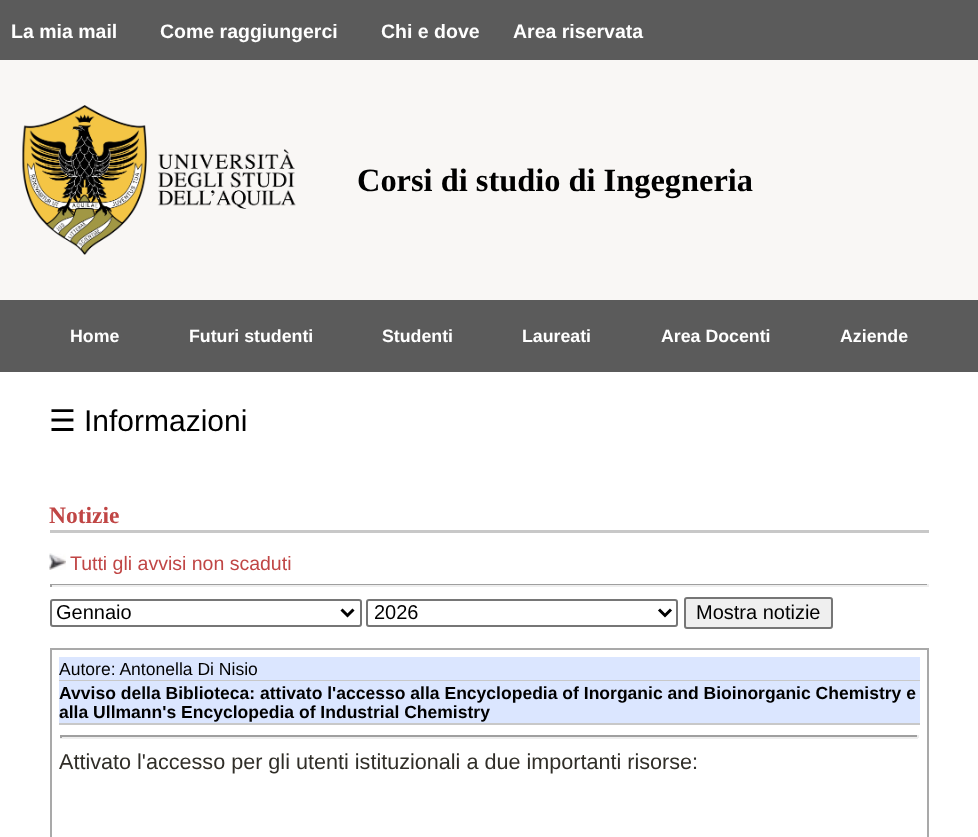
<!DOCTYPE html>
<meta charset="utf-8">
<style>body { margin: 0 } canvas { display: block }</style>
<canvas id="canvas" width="978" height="837"></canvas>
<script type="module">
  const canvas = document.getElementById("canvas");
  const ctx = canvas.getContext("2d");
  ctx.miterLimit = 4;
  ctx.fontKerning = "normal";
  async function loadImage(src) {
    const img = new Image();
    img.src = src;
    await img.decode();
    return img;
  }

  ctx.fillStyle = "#ffffff";
  ctx.fillRect(0, 0, 978, 837);
  ctx.fillStyle = "#f9f7f5";
  ctx.fillRect(0, 60, 978, 240);
  ctx.fillStyle = "#5b5b5b";
  ctx.fillRect(0, 0, 978, 60);
  ctx.font = "bold 19.5px Liberation Sans";
  ctx.fillStyle = "#ffffff";
  ctx.fillText("La mia mail", 11, 38);
  ctx.fillText("Come raggiungerci", 160, 38);
  ctx.fillText("Chi e dove", 381, 38);
  ctx.fillText("Area riservata", 513, 38);
  ctx.drawImage(await loadImage("img1.png"), 22, 105, 274, 150);
  ctx.font = "bold 32.4px Liberation Serif";
  ctx.fillStyle = "#000000";
  ctx.fillText("Corsi di studio di Ingegneria", 357, 191);
  ctx.fillStyle = "#5b5b5b";
  ctx.fillRect(0, 300, 978, 72);
  ctx.font = "bold 17.75px Liberation Sans";
  ctx.fillStyle = "#ffffff";
  ctx.fillText("Home", 70, 342);
  ctx.fillText("Futuri studenti", 189, 342);
  ctx.fillText("Studenti", 382, 342);
  ctx.fillText("Laureati", 522, 342);
  ctx.fillText("Area Docenti", 661, 342);
  ctx.fillText("Aziende", 840, 342);
  ctx.font = "30px DejaVu Sans";
  ctx.fillStyle = "#000000";
  ctx.fillText("☰", 49, 431);
  ctx.font = "30px Liberation Sans";
  ctx.fillText("Informazioni", 84, 431);
  ctx.fillStyle = "#c8c8c8";
  ctx.fillRect(50, 530, 879, 3);
  ctx.font = "bold 23.5px Liberation Serif";
  ctx.fillStyle = "#c04645";
  ctx.fillText("Notizie", 49, 523);
  ctx.drawImage(await loadImage("img2.png"), 49, 553, 17, 17);
  ctx.font = "19.5px Liberation Sans";
  ctx.fillText("Tutti gli avvisi non scaduti", 70, 570);
  ctx.fillStyle = "#9f9f9f";
  ctx.fillRect(50, 584, 879, 1);
  ctx.fillStyle = "#eeeeee";
  ctx.fillRect(927, 584, 2, 3);
  ctx.fillRect(50, 585, 879, 2);
  ctx.fillStyle = "#9f9f9f";
  ctx.fillRect(50, 584, 2, 3);
  ctx.beginPath();
  ctx.roundRect(51, 600, 310, 26, 2);
  ctx.strokeStyle = "#767676";
  ctx.lineWidth = 2;
  ctx.stroke();
  ctx.beginPath();
  ctx.moveTo(341.5, 609.5);
  ctx.lineTo(347.5, 615.5);
  ctx.lineTo(353.5, 609.5);
  ctx.strokeStyle = "#000000";
  ctx.lineWidth = 3;
  ctx.stroke();
  ctx.font = "20px Liberation Sans";
  ctx.fillStyle = "#000000";
  ctx.fillText("Gennaio", 56, 619);
  ctx.beginPath();
  ctx.roundRect(367, 600, 310, 26, 2);
  ctx.strokeStyle = "#767676";
  ctx.lineWidth = 2;
  ctx.stroke();
  ctx.beginPath();
  ctx.moveTo(659, 609.5);
  ctx.lineTo(665, 615.5);
  ctx.lineTo(671, 609.5);
  ctx.strokeStyle = "#000000";
  ctx.lineWidth = 3;
  ctx.stroke();
  ctx.fillText("2026", 374, 619);
  ctx.fillStyle = "#efefef";
  ctx.beginPath();
  ctx.roundRect(685, 598, 147, 30, 2);
  ctx.fill();
  ctx.strokeStyle = "#767676";
  ctx.lineWidth = 2;
  ctx.stroke();
  ctx.fillStyle = "#000000";
  ctx.fillText("Mostra notizie", 696, 619);
  ctx.strokeStyle = "#a9a9a9";
  ctx.strokeRect(51, 649, 877, 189);
  ctx.fillStyle = "#dbe6ff";
  ctx.fillRect(59, 657, 861, 23);
  ctx.fillStyle = "#c8c8c8";
  ctx.fillRect(59, 680, 861, 1);
  ctx.font = "17.55px Liberation Sans";
  ctx.fillStyle = "#000000";
  ctx.fillText("Autore: Antonella Di Nisio", 59, 675);
  ctx.fillStyle = "#dbe6ff";
  ctx.fillRect(59, 681, 861, 42);
  ctx.fillStyle = "#c8c8c8";
  ctx.fillRect(59, 723, 861, 2);
  ctx.font = "bold 17.55px Liberation Sans";
  ctx.fillStyle = "#000000";
  ctx.fillText("Avviso della Biblioteca: attivato l'accesso alla Encyclopedia of Inorganic and Bioinorganic Chemistry e", 59, 699);
  ctx.fillText("alla Ullmann's Encyclopedia of Industrial Chemistry", 59, 718);
  ctx.fillStyle = "#9f9f9f";
  ctx.fillRect(60, 735, 858, 2);
  ctx.fillStyle = "#eeeeee";
  ctx.fillRect(917, 735, 2, 3);
  ctx.fillRect(60, 737, 858, 2);
  ctx.fillStyle = "#9f9f9f";
  ctx.fillRect(60, 735, 2, 3);
  ctx.font = "21.6px Liberation Sans";
  ctx.fillStyle = "#302e28";
  ctx.fillText("Attivato l'accesso per gli utenti istituzionali a due importanti risorse:", 59, 769);
</script>
